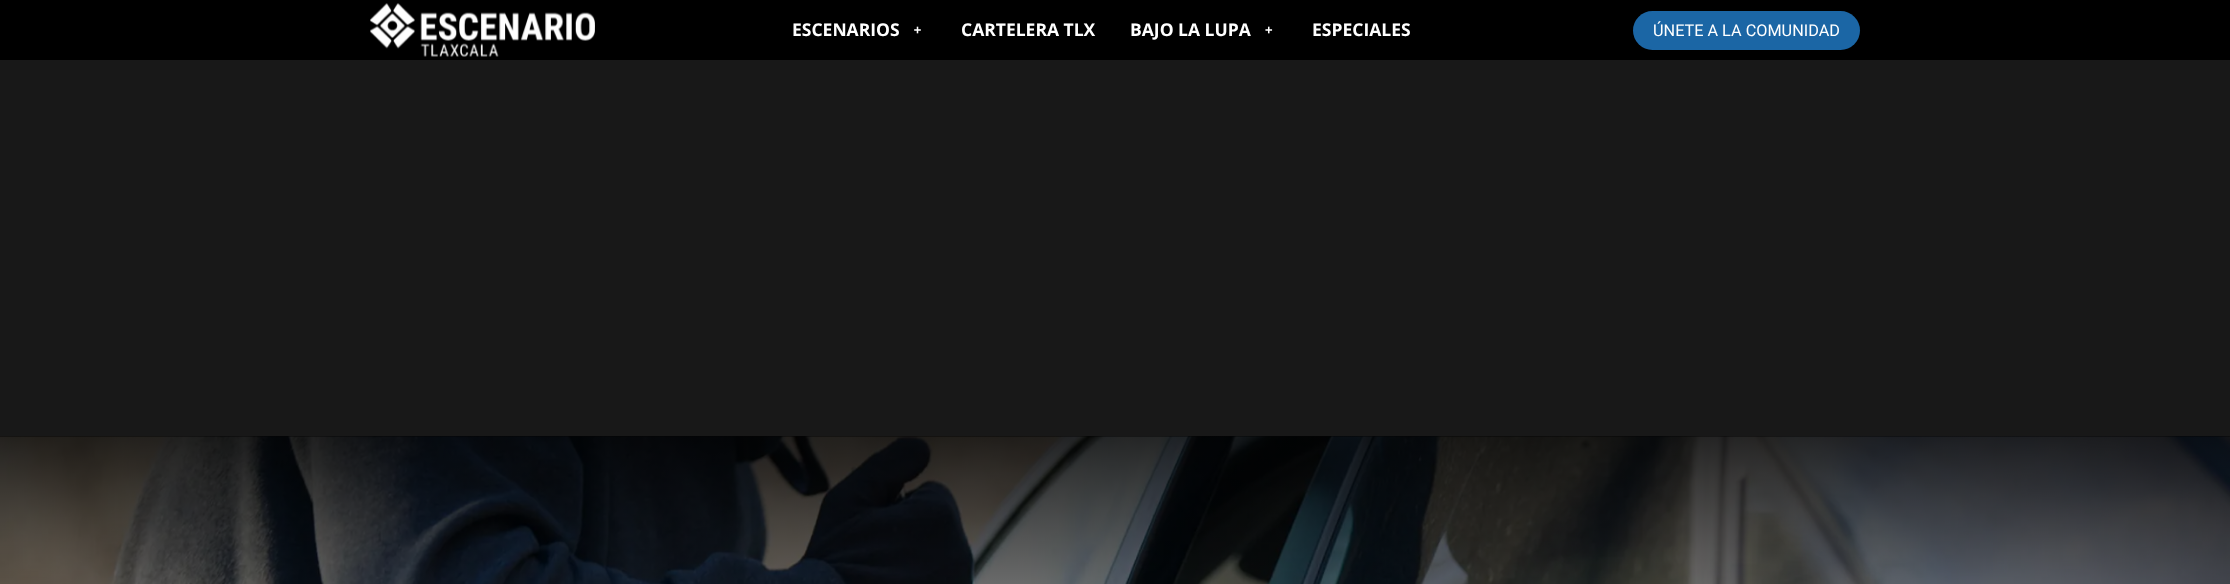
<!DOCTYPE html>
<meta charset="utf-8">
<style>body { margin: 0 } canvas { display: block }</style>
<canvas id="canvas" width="2230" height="584"></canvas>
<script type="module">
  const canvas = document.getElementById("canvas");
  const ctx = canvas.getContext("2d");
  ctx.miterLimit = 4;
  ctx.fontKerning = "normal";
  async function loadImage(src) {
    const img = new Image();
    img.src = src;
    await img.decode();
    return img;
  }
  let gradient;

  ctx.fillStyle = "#181818";
  ctx.fillRect(0, 0, 2230, 584);
  ctx.fillStyle = "#000000";
  ctx.fillRect(0, 0, 2230, 60);
  ctx.drawImage(await loadImage("img1.png"), 370, 3, 225, 54);
  ctx.font = "bold 17.5px Open Sans";
  ctx.fillStyle = "#ffffff";
  ctx.fillText("ESCENARIOS", 792, 36);
  ctx.drawImage(await loadImage("img2.png"), 914, 26, 7, 8);
  ctx.fillText("CARTELERA TLX", 961, 36);
  ctx.fillText("BAJO LA LUPA", 1130, 36);
  ctx.drawImage(await loadImage("img3.png"), 1265, 26, 8, 8);
  ctx.fillText("ESPECIALES", 1312, 36);
  ctx.fillStyle = "#1b66a5";
  ctx.beginPath();
  ctx.roundRect(1633, 11, 227, 39, 19.5);
  ctx.fill();
  ctx.font = "16.25px Roboto";
  ctx.fillStyle = "#ffffff";
  ctx.fillText("ÚNETE A LA COMUNIDAD", 1653, 36);
  ctx.drawImage(await loadImage("img4.png"), 0, 436, 2230, 148);
  gradient = ctx.createLinearGradient(1115, 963, 1115, 436);
  gradient.addColorStop(0, "rgba(0, 0, 0, 0.55)");
  gradient.addColorStop(0.42, "rgba(0, 0, 0, 0.3)");
  gradient.addColorStop(1, "rgba(0, 0, 0, 0.85)");
  ctx.fillStyle = gradient;
  ctx.fillRect(0, 436, 2230, 148);
</script>
